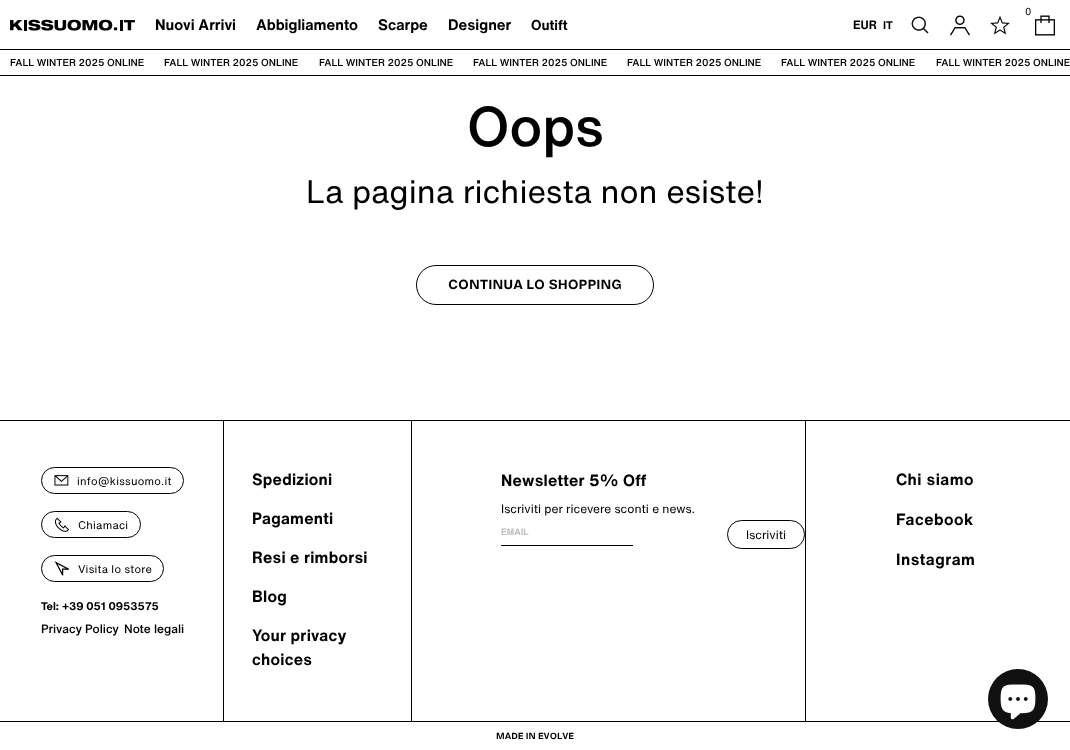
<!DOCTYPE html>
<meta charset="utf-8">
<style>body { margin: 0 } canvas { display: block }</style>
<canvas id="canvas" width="1070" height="750"></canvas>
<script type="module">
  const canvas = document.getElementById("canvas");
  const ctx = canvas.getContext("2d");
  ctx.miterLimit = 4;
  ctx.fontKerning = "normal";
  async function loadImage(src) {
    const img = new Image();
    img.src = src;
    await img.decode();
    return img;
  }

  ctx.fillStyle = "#ffffff";
  ctx.fillRect(0, 0, 1070, 750);
  ctx.fillStyle = "#000000";
  ctx.fillRect(0, 49, 1070, 1);
  ctx.drawImage(await loadImage("img1.png"), 10, 19, 125, 12);
  ctx.font = "bold 15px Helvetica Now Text";
  ctx.fillText("Nuovi Arrivi", 155, 30);
  ctx.fillText("Abbigliamento", 256, 30);
  ctx.fillText("Scarpe", 378, 30);
  ctx.fillText("Designer", 448, 30);
  ctx.font = "bold 14px Helvetica Now Text";
  ctx.fillText("Outift", 531, 30);
  ctx.font = "10px Helvetica Now Text";
  ctx.fillText("0", 1025, 15);
  ctx.drawImage(await loadImage("img2.png"), 1035, 15, 20, 21);
  ctx.font = "bold 12px Helvetica Now Text";
  ctx.fillText("EUR", 853, 29);
  ctx.font = "bold 11px Helvetica Now Text";
  ctx.fillText("IT", 883, 29);
  ctx.drawImage(await loadImage("img3.png"), 911, 16, 18, 18);
  ctx.drawImage(await loadImage("img4.png"), 950, 15, 20, 21);
  ctx.drawImage(await loadImage("img5.png"), 990, 16, 20, 19);
  ctx.fillRect(0, 75, 1070, 1);
  ctx.font = "500 10px Helvetica Now Text";
  ctx.fillText("FALL WINTER 2025 ONLINE", 10, 66);
  ctx.fillText("FALL WINTER 2025 ONLINE", 164, 66);
  ctx.fillText("FALL WINTER 2025 ONLINE", 319, 66);
  ctx.fillText("FALL WINTER 2025 ONLINE", 473, 66);
  ctx.fillText("FALL WINTER 2025 ONLINE", 627, 66);
  ctx.fillText("FALL WINTER 2025 ONLINE", 781, 66);
  ctx.fillText("FALL WINTER 2025 ONLINE", 936, 66);
  ctx.font = "500 55px Helvetica Now Text";
  ctx.fillText("Oops", 467, 146);
  ctx.font = "32px Helvetica Now Text";
  ctx.fillText("La pagina richiesta non esiste!", 306, 203);
  ctx.beginPath();
  ctx.roundRect(416.5, 265.5, 237, 39, 19.5);
  ctx.strokeStyle = "#000000";
  ctx.stroke();
  ctx.font = "bold 12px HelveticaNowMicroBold";
  ctx.fillText("CONTINUA LO SHOPPING", 448, 289);
  ctx.fillRect(0, 420, 1070, 1);
  ctx.beginPath();
  ctx.roundRect(41.5, 467.5, 142, 26, 13);
  ctx.stroke();
  ctx.drawImage(await loadImage("img6.png"), 54, 475, 15, 11);
  ctx.letterSpacing = "0.25px";
  ctx.font = "11px Helvetica Now Text";
  ctx.fillText("info@kissuomo.it", 77, 485);
  ctx.beginPath();
  ctx.roundRect(41.5, 511.5, 99, 26, 13);
  ctx.stroke();
  ctx.drawImage(await loadImage("img7.png"), 54, 517, 15, 15);
  ctx.fillText("Chiamaci", 78, 529);
  ctx.beginPath();
  ctx.roundRect(41.5, 555.5, 122, 26, 13);
  ctx.stroke();
  ctx.drawImage(await loadImage("img8.png"), 54, 561, 15, 15);
  ctx.fillText("Visita lo store", 78, 573);
  ctx.letterSpacing = "0px";
  ctx.font = "bold 11px Helvetica Now Text";
  ctx.fillText("Tel: +39 051 0953575", 41, 610);
  ctx.font = "500 12px Helvetica Now Text";
  ctx.fillText("Privacy Policy", 41, 633);
  ctx.fillText("Note legali", 124, 633);
  ctx.fillRect(223, 421, 1, 300);
  ctx.letterSpacing = "0.25px";
  ctx.font = "bold 16px Helvetica Now Text";
  ctx.fillText("Spedizioni", 252, 485);
  ctx.fillText("Pagamenti", 252, 524);
  ctx.fillText("Resi e rimborsi", 252, 563);
  ctx.fillText("Blog", 252, 602);
  ctx.fillText("Your privacy", 252, 641);
  ctx.fillText("choices", 252, 665);
  ctx.fillRect(411, 421, 1, 300);
  ctx.fillText("Newsletter 5% Off", 501, 486);
  ctx.letterSpacing = "0px";
  ctx.font = "12px Helvetica Now Text";
  ctx.fillText("Iscriviti per ricevere sconti e news.", 501, 513);
  ctx.fillRect(501, 545, 132, 1);
  ctx.font = "bold 9px Helvetica Now Text";
  ctx.fillStyle = "#bfbfbf";
  ctx.fillText("EMAIL", 501, 535);
  ctx.beginPath();
  ctx.roundRect(727.5, 520.5, 77, 28, 14);
  ctx.stroke();
  ctx.font = "12px Helvetica Now Text";
  ctx.fillStyle = "#000000";
  ctx.fillText("Iscriviti", 746, 539);
  ctx.fillRect(805, 421, 1, 300);
  ctx.letterSpacing = "0.5px";
  ctx.font = "bold 16px Helvetica Now Text";
  ctx.fillText("Chi siamo", 896, 485);
  ctx.fillText("Facebook", 896, 525);
  ctx.fillText("Instagram", 896, 565);
  ctx.fillRect(0, 721, 1070, 1);
  ctx.letterSpacing = "0px";
  ctx.font = "bold 8px HelveticaNowMicroBold";
  ctx.fillText("MADE IN EVOLVE", 496, 739);
  ctx.fillStyle = "#111111";
  ctx.beginPath();
  ctx.arc(1018, 699, 30, 0, Math.PI * 2);
  ctx.fill();
  ctx.drawImage(await loadImage("img9.png"), 1000, 684, 36, 36);
</script>
